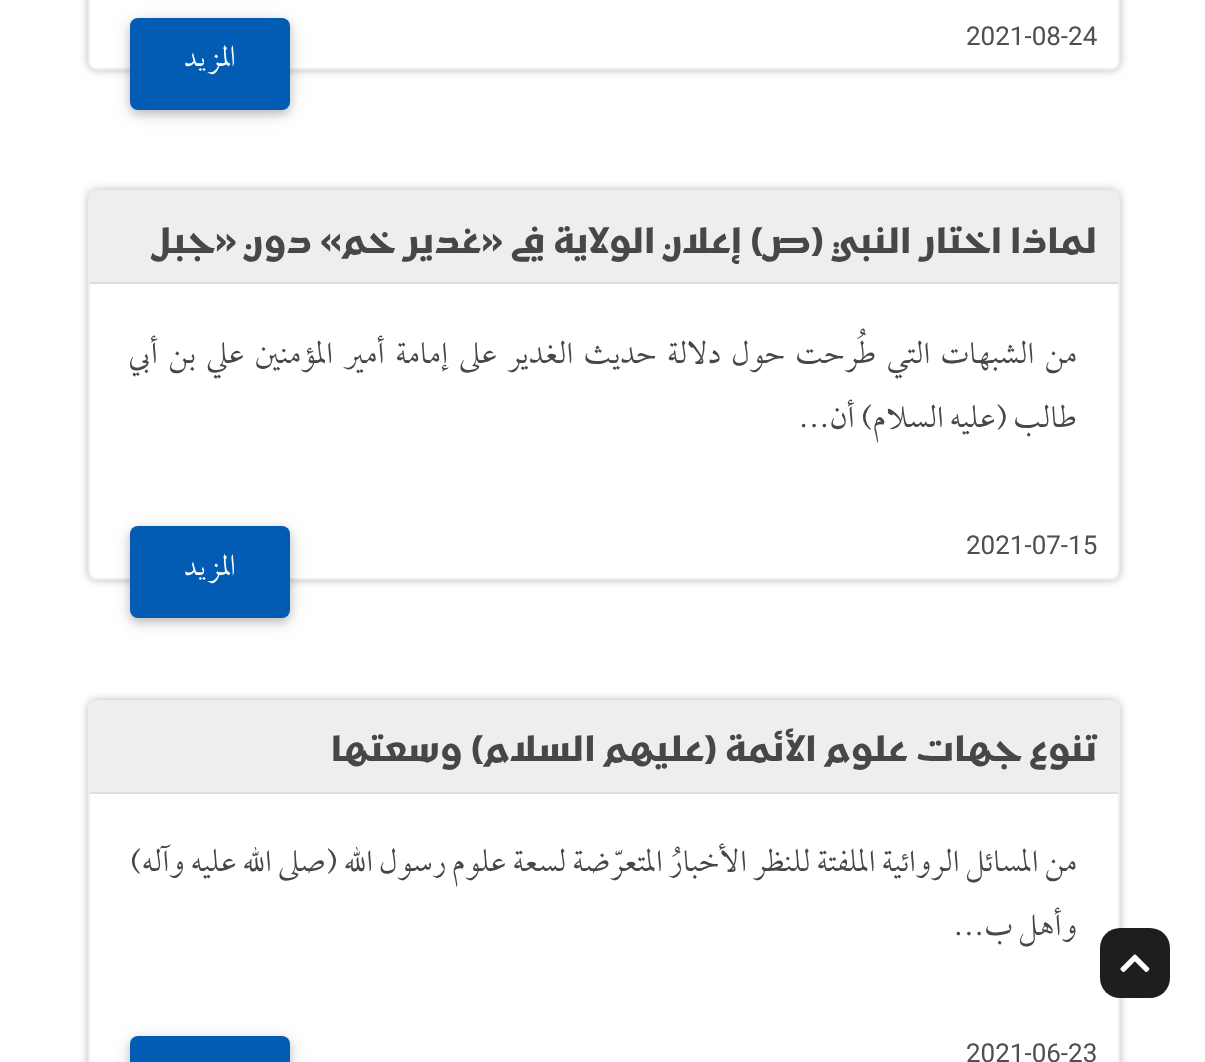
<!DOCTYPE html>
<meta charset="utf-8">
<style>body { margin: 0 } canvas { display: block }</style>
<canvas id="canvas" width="1205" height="1062"></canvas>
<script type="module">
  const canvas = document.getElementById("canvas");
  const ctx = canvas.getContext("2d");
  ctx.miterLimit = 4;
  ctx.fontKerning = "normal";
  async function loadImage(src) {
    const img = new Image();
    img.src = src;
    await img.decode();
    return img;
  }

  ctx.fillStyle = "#ffffff";
  ctx.fillRect(0, 0, 1205, 1062);
  ctx.fillStyle = "#bbbbbb";
  ctx.filter = "blur(5px)";
  ctx.beginPath();
  ctx.roundRect(88, 700, 1032, 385, 8);
  ctx.fill();
  ctx.filter = "none";
  ctx.fillStyle = "#ffffff";
  ctx.beginPath();
  ctx.roundRect(89, 701, 1030, 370, 7);
  ctx.fill();
  ctx.strokeStyle = "#eeeeee";
  ctx.lineWidth = 2;
  ctx.stroke();
  ctx.fillStyle = "#1f1e1e";
  ctx.beginPath();
  ctx.roundRect(1100, 928, 70, 70, 20);
  ctx.fill();
  ctx.drawImage(await loadImage("img1.png"), 1120, 954, 30, 18);
  ctx.fillStyle = "#bbbbbb";
  ctx.filter = "blur(5px)";
  ctx.beginPath();
  ctx.roundRect(88, -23, 1032, 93, 8);
  ctx.fill();
  ctx.filter = "none";
  ctx.fillStyle = "#ffffff";
  ctx.beginPath();
  ctx.roundRect(89, -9, 1030, 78, 7);
  ctx.fill();
  ctx.stroke();
  ctx.font = "26px Roboto";
  ctx.fillStyle = "#4f4f4f";
  ctx.fillText("2021-08-24", 966, 45);
  ctx.fillStyle = "rgba(0, 0, 0, 0.1)";
  ctx.filter = "blur(10px)";
  ctx.beginPath();
  ctx.roundRect(130, 22, 160, 92, 8);
  ctx.fill();
  ctx.filter = "none";
  ctx.fillStyle = "rgba(0, 0, 0, 0.2)";
  ctx.filter = "blur(5px)";
  ctx.beginPath();
  ctx.roundRect(130, 22, 160, 92, 8);
  ctx.fill();
  ctx.filter = "none";
  ctx.fillStyle = "#025cb4";
  ctx.beginPath();
  ctx.roundRect(130, 18, 160, 92, 8);
  ctx.fill();
  ctx.direction = "rtl";
  ctx.font = "34px 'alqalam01'";
  ctx.fillStyle = "#ffffff";
  ctx.fillText("المزيد", 235, 66);
  ctx.fillStyle = "#bbbbbb";
  ctx.filter = "blur(5px)";
  ctx.beginPath();
  ctx.roundRect(88, 190, 1032, 390, 8);
  ctx.fill();
  ctx.filter = "none";
  ctx.fillStyle = "#ffffff";
  ctx.beginPath();
  ctx.roundRect(89, 191, 1030, 388, 7);
  ctx.fill();
  ctx.stroke();
  ctx.fillStyle = "#eeeeee";
  ctx.fillRect(90, 192, 1028, 90);
  ctx.fillStyle = "#dddddd";
  ctx.fillRect(90, 282, 1028, 2);
  ctx.font = "bold 34px Kufam";
  ctx.fillStyle = "#474747";
  ctx.fillText("لماذا اختار النبي (ص) إعلان الولاية في «غدير خم» دون «جبل", 1097, 253);
  ctx.wordSpacing = "4.4px";
  ctx.font = "300 36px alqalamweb";
  ctx.fillText("من الشبهات التي طُرحت حول دلالة حديث الغدير على إمامة أمير المؤمنين علي بن أبي", 1077, 363);
  ctx.wordSpacing = "0px";
  ctx.fillText("طالب (عليه السلام) أن...", 1077, 427);
  ctx.direction = "ltr";
  ctx.font = "26px Roboto";
  ctx.fillStyle = "#4f4f4f";
  ctx.fillText("2021-07-15", 966, 554);
  ctx.fillStyle = "rgba(0, 0, 0, 0.1)";
  ctx.filter = "blur(10px)";
  ctx.beginPath();
  ctx.roundRect(130, 530, 160, 92, 8);
  ctx.fill();
  ctx.filter = "none";
  ctx.fillStyle = "rgba(0, 0, 0, 0.2)";
  ctx.filter = "blur(5px)";
  ctx.beginPath();
  ctx.roundRect(130, 530, 160, 92, 8);
  ctx.fill();
  ctx.filter = "none";
  ctx.fillStyle = "#025cb4";
  ctx.beginPath();
  ctx.roundRect(130, 526, 160, 92, 8);
  ctx.fill();
  ctx.direction = "rtl";
  ctx.font = "34px 'alqalam01'";
  ctx.fillStyle = "#ffffff";
  ctx.fillText("المزيد", 235, 575);
  ctx.fillStyle = "#eeeeee";
  ctx.fillRect(90, 702, 1028, 90);
  ctx.fillStyle = "#dddddd";
  ctx.fillRect(90, 792, 1028, 2);
  ctx.font = "bold 34px Kufam";
  ctx.fillStyle = "#474747";
  ctx.fillText("تنوع جهات علوم الأئمة (عليهم السلام) وسعتها", 1097, 761);
  ctx.font = "300 36px alqalamweb";
  ctx.fillText("من المسائل الروائية الملفتة للنظر الأخبارُ المتعرّضة لسعة علوم رسول الله (صلى الله عليه وآله)", 1077, 871);
  ctx.fillText("وأهل ب...", 1077, 935);
  ctx.direction = "ltr";
  ctx.font = "26px Roboto";
  ctx.fillStyle = "#4f4f4f";
  ctx.fillText("2021-06-23", 966, 1062);
  ctx.fillStyle = "rgba(0, 0, 0, 0.1)";
  ctx.filter = "blur(10px)";
  ctx.beginPath();
  ctx.roundRect(130, 1040, 160, 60, 8);
  ctx.fill();
  ctx.filter = "none";
  ctx.fillStyle = "rgba(0, 0, 0, 0.2)";
  ctx.filter = "blur(5px)";
  ctx.beginPath();
  ctx.roundRect(130, 1040, 160, 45, 8);
  ctx.fill();
  ctx.filter = "none";
  ctx.fillStyle = "#025cb4";
  ctx.beginPath();
  ctx.roundRect(130, 1036, 160, 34, 8);
  ctx.fill();
</script>
